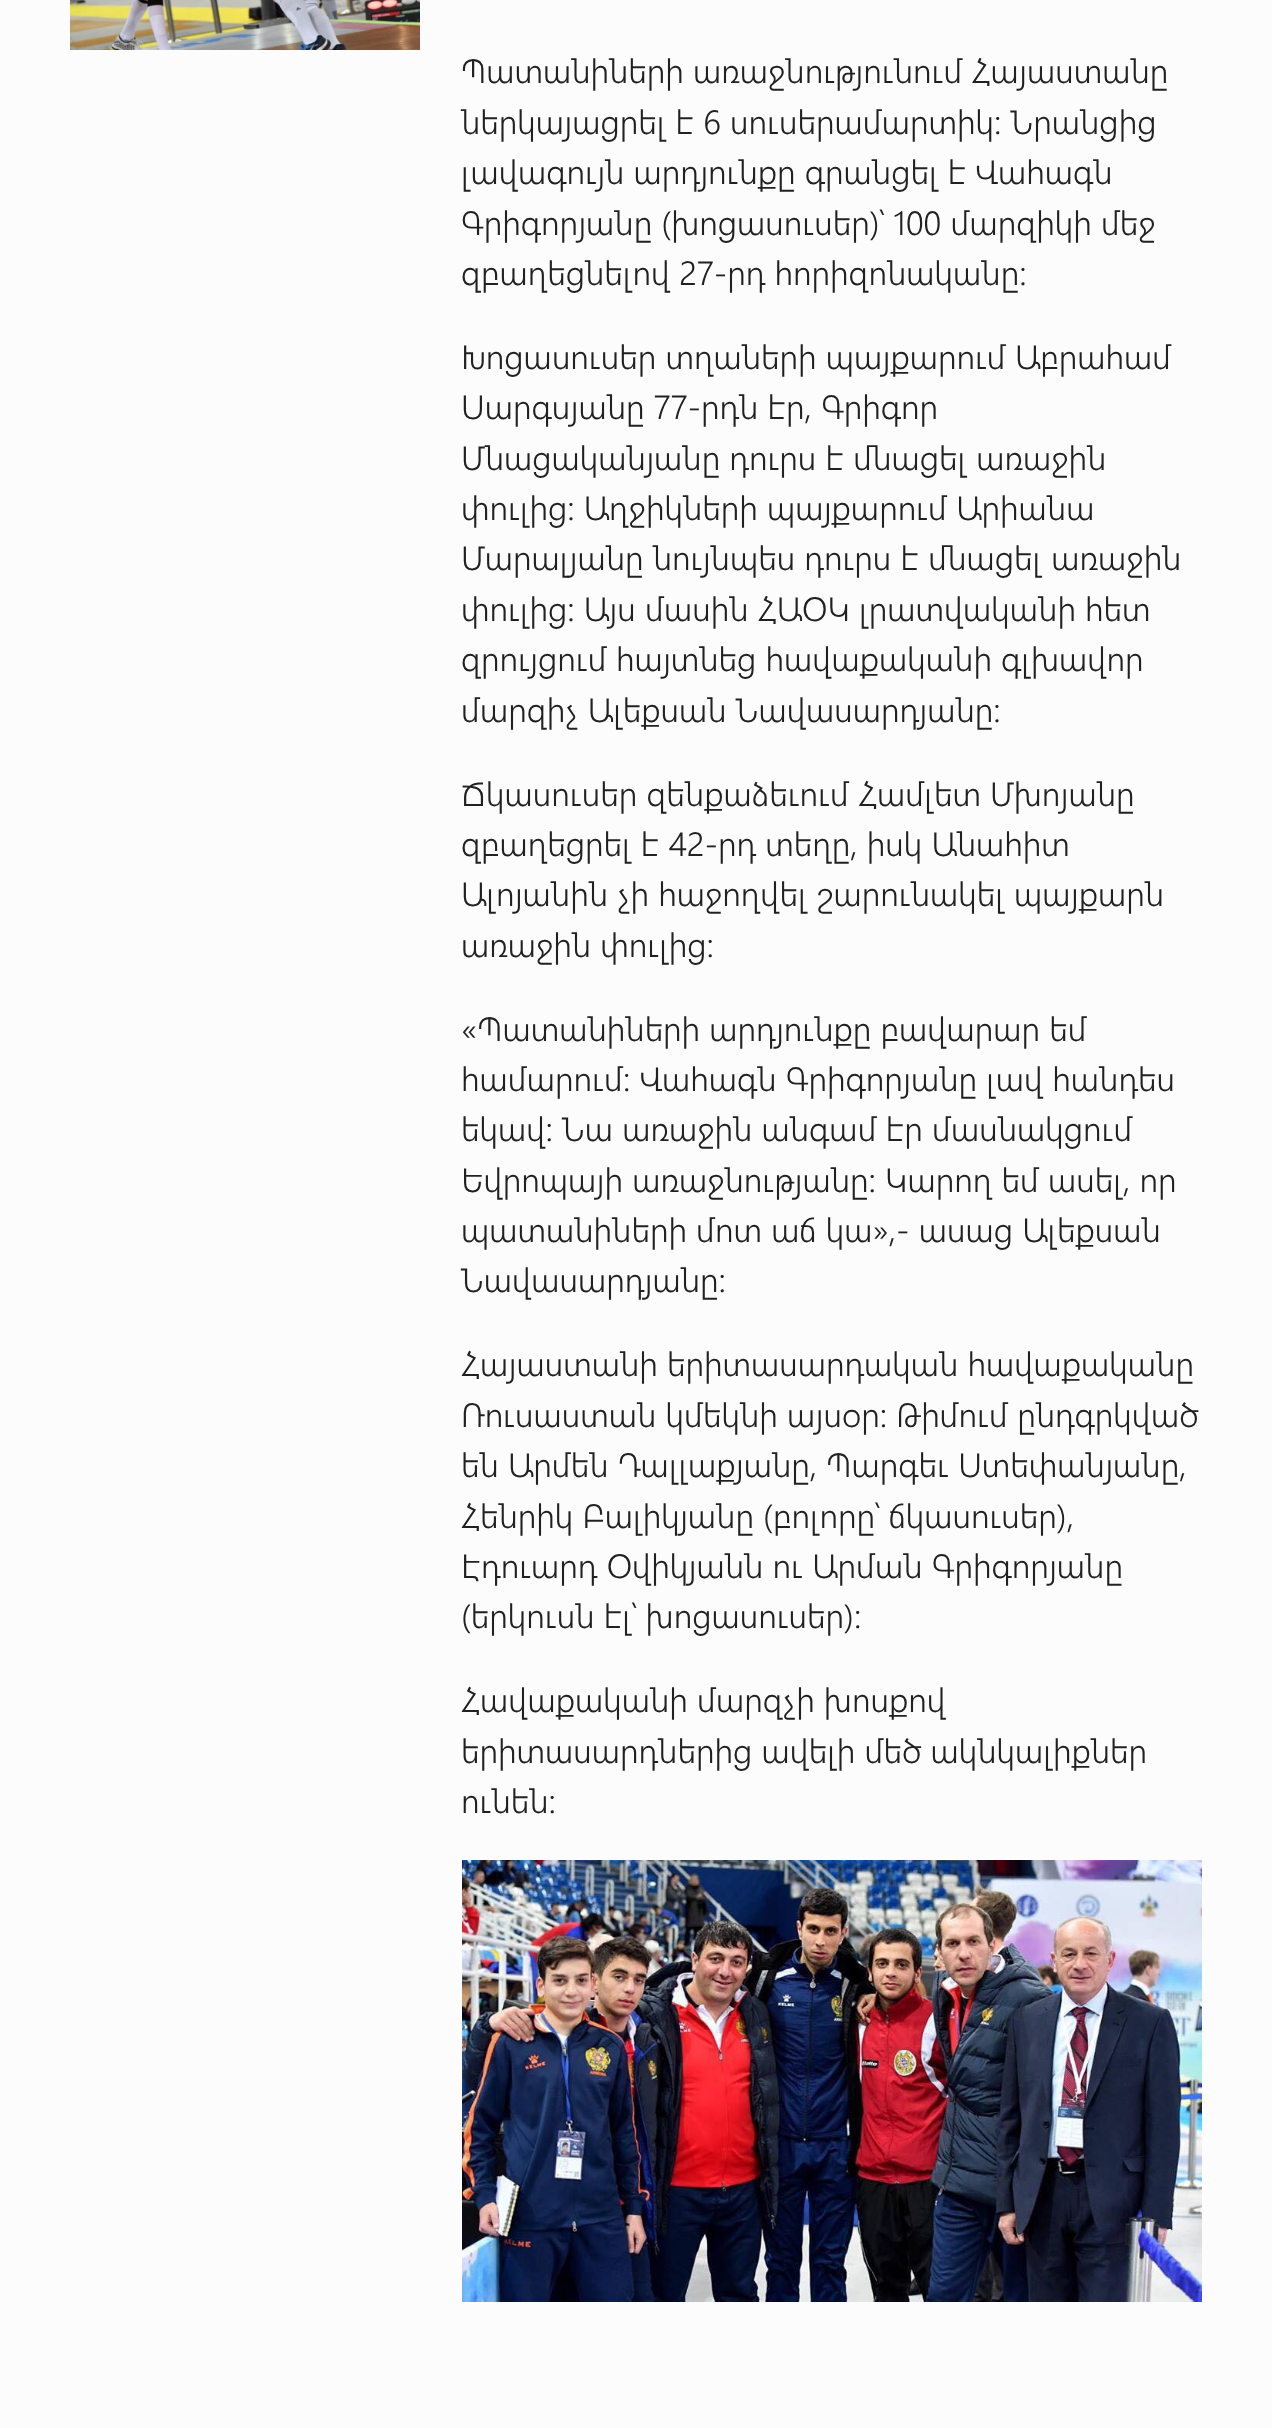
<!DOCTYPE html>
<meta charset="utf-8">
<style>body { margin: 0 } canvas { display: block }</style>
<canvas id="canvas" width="1272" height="2428"></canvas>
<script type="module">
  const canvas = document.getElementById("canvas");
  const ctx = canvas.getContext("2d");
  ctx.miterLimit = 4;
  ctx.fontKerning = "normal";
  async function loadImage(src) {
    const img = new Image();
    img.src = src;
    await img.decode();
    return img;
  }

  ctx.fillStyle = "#fcfcfc";
  ctx.fillRect(0, 0, 1272, 2428);
  ctx.drawImage(await loadImage("img1.png"), 70, 0, 350, 50);
  ctx.font = "300 33.6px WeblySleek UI";
  ctx.fillStyle = "#212121";
  ctx.fillText("Պատանիների առաջնությունում Հայաստանը", 461, 83);
  ctx.fillText("ներկայացրել է 6 սուսերամարտիկ: Նրանցից", 461, 134);
  ctx.fillText("լավագույն արդյունքը գրանցել է Վահագն", 461, 184);
  ctx.fillText("Գրիգորյանը (խոցասուսեր)՝ 100 մարզիկի մեջ", 461, 235);
  ctx.fillText("զբաղեցնելով 27-րդ հորիզոնականը:", 461, 285);
  ctx.fillText("Խոցասուսեր տղաների պայքարում Աբրահամ", 461, 369);
  ctx.fillText("Սարգսյանը 77-րդն էր, Գրիգոր", 461, 419);
  ctx.fillText("Մնացականյանը դուրս է մնացել առաջին", 461, 470);
  ctx.fillText("փուլից: Աղջիկների պայքարում Արիանա", 461, 520);
  ctx.fillText("Մարալյանը նույնպես դուրս է մնացել առաջին", 461, 570);
  ctx.fillText("փուլից: Այս մասին ՀԱՕԿ լրատվականի հետ", 461, 621);
  ctx.fillText("զրույցում հայտնեց հավաքականի գլխավոր", 461, 671);
  ctx.fillText("մարզիչ Ալեքսան Նավասարդյանը:", 461, 722);
  ctx.fillText("Ճկասուսեր զենքաձեւում Համլետ Մխոյանը", 461, 806);
  ctx.fillText("զբաղեցրել է 42-րդ տեղը, իսկ Անահիտ", 461, 856);
  ctx.fillText("Ալոյանին չի հաջողվել շարունակել պայքարն", 461, 906);
  ctx.fillText("առաջին փուլից:", 461, 957);
  ctx.fillText("«Պատանիների արդյունքը բավարար եմ", 461, 1041);
  ctx.fillText("համարում: Վահագն Գրիգորյանը լավ հանդես", 461, 1091);
  ctx.fillText("եկավ: Նա առաջին անգամ էր մասնակցում", 461, 1141);
  ctx.fillText("Եվրոպայի առաջնությանը: Կարող եմ ասել, որ", 461, 1192);
  ctx.fillText("պատանիների մոտ աճ կա»,- ասաց Ալեքսան", 461, 1242);
  ctx.fillText("Նավասարդյանը:", 461, 1292);
  ctx.fillText("Հայաստանի երիտասարդական հավաքականը", 461, 1376);
  ctx.fillText("Ռուսաստան կմեկնի այսօր: Թիմում ընդգրկված", 461, 1427);
  ctx.fillText("են Արմեն Դալլաքյանը, Պարգեւ Ստեփանյանը,", 461, 1477);
  ctx.fillText("Հենրիկ Բալիկյանը (բոլորը՝ ճկասուսեր),", 461, 1528);
  ctx.fillText("Էդուարդ Օվիկյանն ու Արման Գրիգորյանը", 461, 1578);
  ctx.fillText("(երկուսն էլ՝ խոցասուսեր):", 461, 1628);
  ctx.fillText("Հավաքականի մարզչի խոսքով", 461, 1712);
  ctx.fillText("երիտասարդներից ավելի մեծ ակնկալիքներ", 461, 1763);
  ctx.fillText("ունեն:", 461, 1813);
  ctx.drawImage(await loadImage("img2.png"), 462, 1860, 740, 442);
</script>
